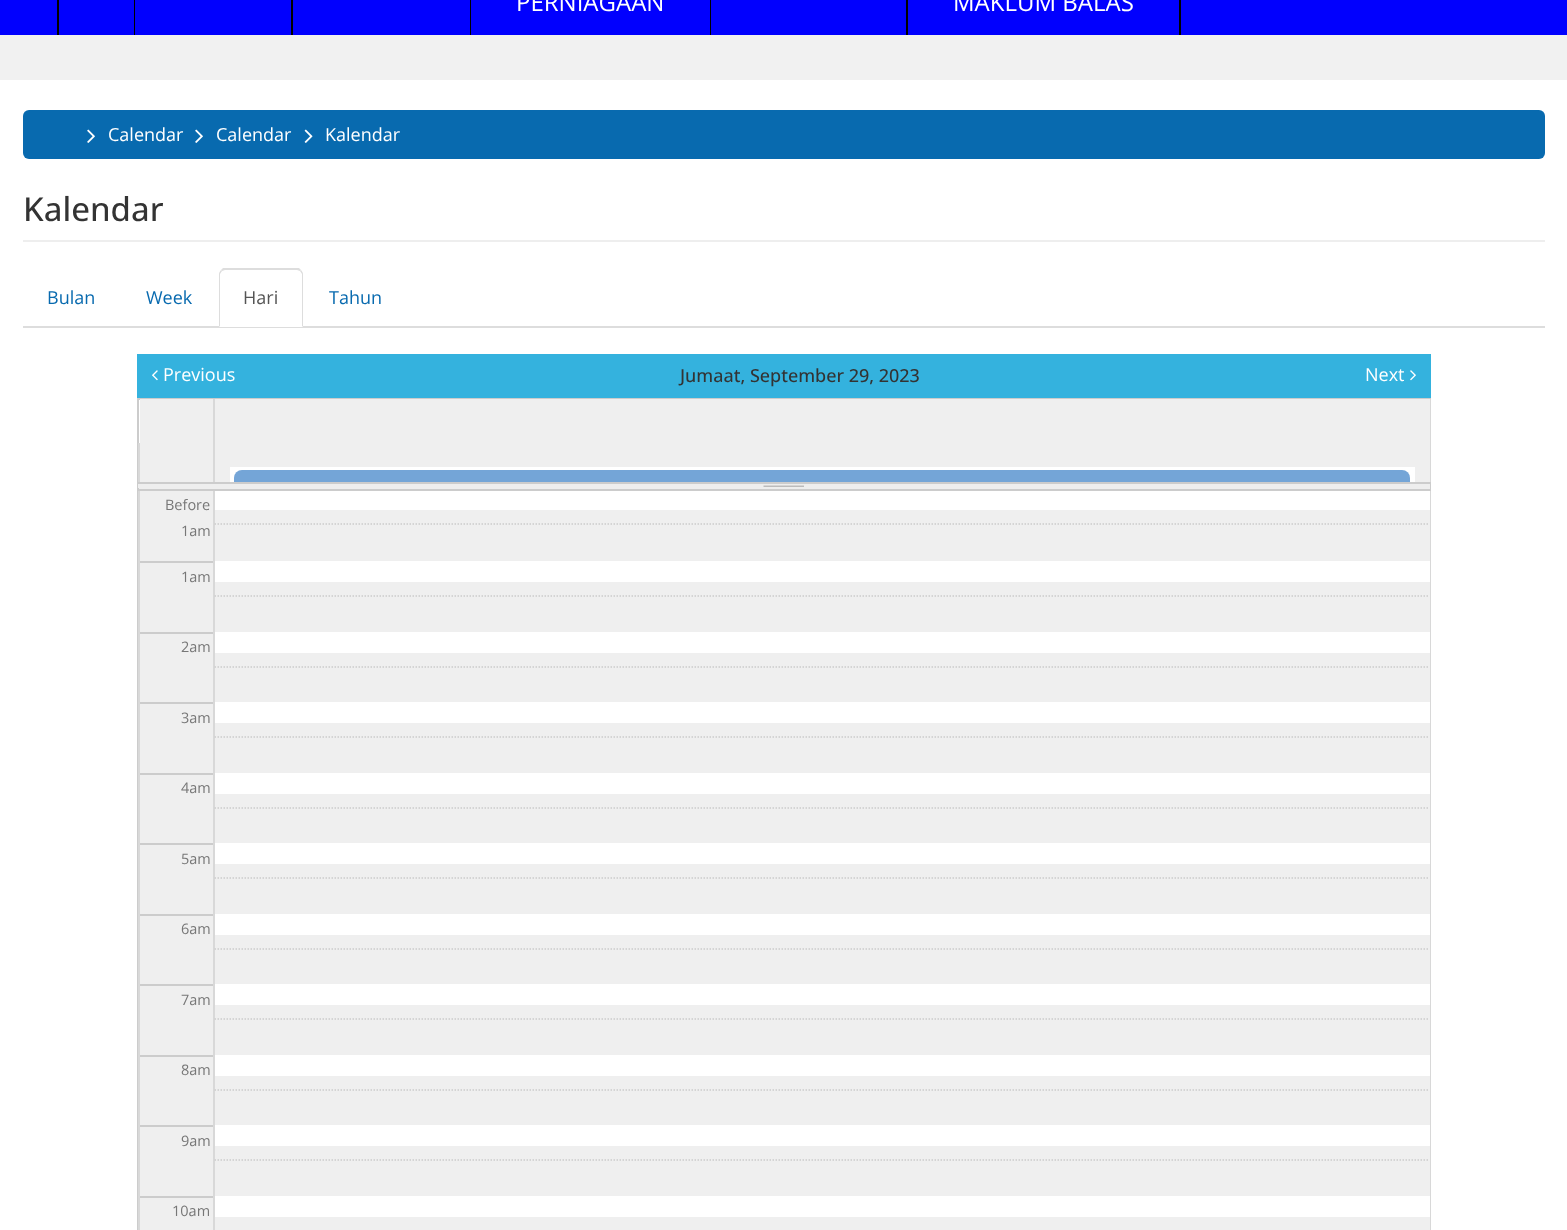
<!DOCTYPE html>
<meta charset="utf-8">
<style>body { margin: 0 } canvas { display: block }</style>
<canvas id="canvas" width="1567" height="1230"></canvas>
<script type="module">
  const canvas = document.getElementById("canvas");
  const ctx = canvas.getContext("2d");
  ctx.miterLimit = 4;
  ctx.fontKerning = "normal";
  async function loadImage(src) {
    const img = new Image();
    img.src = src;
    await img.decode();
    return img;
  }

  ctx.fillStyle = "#f1f1f1";
  ctx.fillRect(0, 0, 1567, 1230);
  ctx.fillStyle = "#0100fe";
  ctx.fillRect(0, 0, 1567, 35);
  ctx.fillStyle = "#000000";
  ctx.fillRect(134, 0, 1, 35);
  ctx.fillRect(57, 0, 2, 35);
  ctx.fillRect(291, 0, 2, 35);
  ctx.fillRect(470, 0, 1, 35);
  ctx.fillRect(710, 0, 1, 35);
  ctx.font = "24px Open Sans";
  ctx.fillStyle = "#ffffff";
  ctx.fillText("PERNIAGAAN", 516, 11);
  ctx.fillStyle = "#000000";
  ctx.fillRect(906, 0, 2, 35);
  ctx.fillRect(1179, 0, 2, 35);
  ctx.fillStyle = "#ffffff";
  ctx.fillText("MAKLUM BALAS", 953, 11);
  ctx.fillRect(0, 80, 1567, 1150);
  ctx.fillStyle = "#086aaf";
  ctx.beginPath();
  ctx.roundRect(23, 110, 1522, 49, 6);
  ctx.fill();
  ctx.drawImage(await loadImage("img1.png"), 87, 129, 8, 14);
  ctx.font = "18px Open Sans";
  ctx.fillStyle = "#ffffff";
  ctx.fillText("Calendar", 108, 141);
  ctx.drawImage(await loadImage("img1.png"), 195, 129, 8, 14);
  ctx.fillText("Calendar", 216, 141);
  ctx.drawImage(await loadImage("img2.png"), 304, 129, 9, 14);
  ctx.fillText("Kalendar", 325, 141);
  ctx.fillStyle = "#eeeeee";
  ctx.fillRect(23, 240, 1522, 2);
  ctx.font = "500 33px Open Sans";
  ctx.fillStyle = "#333333";
  ctx.fillText("Kalendar", 23, 221);
  ctx.fillStyle = "#dddddd";
  ctx.fillRect(23, 326, 1522, 2);
  ctx.font = "18px Open Sans";
  ctx.fillStyle = "#086aaf";
  ctx.fillText("Bulan", 47, 304);
  ctx.fillText("Week", 146, 304);
  ctx.fillStyle = "#ffffff";
  ctx.beginPath();
  ctx.roundRect(219, 269, 84, 58, [6, 6, 0, 0]);
  ctx.fill();
  ctx.fillStyle = "#dddddd";
  ctx.beginPath();
  ctx.moveTo(225, 270);
  ctx.lineTo(222, 271);
  ctx.lineTo(221, 270);
  ctx.lineTo(223, 268);
  ctx.lineTo(299, 268);
  ctx.lineTo(301, 270);
  ctx.lineTo(300, 271);
  ctx.lineTo(297, 270);
  ctx.closePath();
  ctx.fill();
  ctx.beginPath();
  ctx.moveTo(303, 327);
  ctx.lineTo(303, 274);
  ctx.bezierCurveTo(303, 273, 302, 271, 301, 270);
  ctx.lineTo(300, 271);
  ctx.lineTo(302, 274);
  ctx.lineTo(302, 326);
  ctx.closePath();
  ctx.fill();
  ctx.beginPath();
  ctx.moveTo(219, 327);
  ctx.lineTo(220, 326);
  ctx.lineTo(220, 274);
  ctx.lineTo(222, 271);
  ctx.lineTo(221, 270);
  ctx.bezierCurveTo(220, 271, 219, 273, 219, 274);
  ctx.closePath();
  ctx.fill();
  ctx.fillStyle = "#555555";
  ctx.fillText("Hari", 243, 304);
  ctx.fillStyle = "#086aaf";
  ctx.fillText("Tahun", 329, 304);
  ctx.fillStyle = "#34b2de";
  ctx.fillRect(137, 354, 1294, 44);
  ctx.drawImage(await loadImage("img3.png"), 152, 370, 6, 11);
  ctx.fillStyle = "#ffffff";
  ctx.fillText("Previous", 163, 381);
  ctx.font = "500 18px Open Sans";
  ctx.fillStyle = "#333333";
  ctx.fillText("Jumaat, September 29, 2023", 680, 382);
  ctx.font = "18px Open Sans";
  ctx.fillStyle = "#ffffff";
  ctx.fillText("Next", 1365, 381);
  ctx.drawImage(await loadImage("img4.png"), 1410, 370, 6, 11);
  ctx.fillStyle = "#cccccc";
  ctx.fillRect(137, 398, 1294, 2);
  ctx.fillStyle = "#eeeeee";
  ctx.fillRect(137, 488, 1294, 1);
  ctx.fillStyle = "#cccccc";
  ctx.fillRect(1430, 483, 1, 6);
  ctx.fillRect(137, 483, 2, 6);
  ctx.fillRect(137, 482, 1294, 2);
  ctx.fillRect(137, 398, 2, 85);
  ctx.fillStyle = "#d8d8d8";
  ctx.fillRect(138, 443, 2, 39);
  ctx.fillRect(1430, 399, 1, 83);
  ctx.fillRect(213, 399, 2, 83);
  ctx.fillStyle = "#efefef";
  ctx.fillRect(215, 399, 1215, 83);
  ctx.fillStyle = "#ffffff";
  ctx.fillRect(230, 467, 1185, 15);
  ctx.fillStyle = "#74a5d7";
  ctx.beginPath();
  ctx.roundRect(234, 470, 1176, 12, [8, 8, 0, 0]);
  ctx.fill();
  ctx.fillStyle = "#efefef";
  ctx.fillRect(140, 399, 73, 83);
  ctx.fillStyle = "#eeeeee";
  ctx.fillRect(138, 484, 1292, 4);
  ctx.drawImage(await loadImage("img5.png"), 763, 485, 41, 2);
  ctx.fillStyle = "#cccccc";
  ctx.fillRect(137, 489, 1294, 2);
  ctx.fillRect(137, 489, 2, 741);
  ctx.fillStyle = "#efefef";
  ctx.fillRect(140, 491, 73, 739);
  ctx.fillStyle = "#d8d8d8";
  ctx.fillRect(138, 491, 2, 739);
  ctx.font = "14.5px Open Sans";
  ctx.fillStyle = "#777777";
  ctx.fillText("Before", 165, 510);
  ctx.fillText("1am", 181, 536);
  ctx.fillStyle = "#cccccc";
  ctx.fillRect(140, 561, 73, 2);
  ctx.fillStyle = "#777777";
  ctx.fillText("1am", 181, 582);
  ctx.fillStyle = "#cccccc";
  ctx.fillRect(140, 632, 73, 2);
  ctx.fillStyle = "#777777";
  ctx.fillText("2am", 181, 652);
  ctx.fillStyle = "#cccccc";
  ctx.fillRect(140, 702, 73, 2);
  ctx.fillStyle = "#777777";
  ctx.fillText("3am", 181, 723);
  ctx.fillStyle = "#cccccc";
  ctx.fillRect(140, 773, 73, 2);
  ctx.fillStyle = "#777777";
  ctx.fillText("4am", 181, 793);
  ctx.fillStyle = "#cccccc";
  ctx.fillRect(140, 843, 73, 2);
  ctx.fillStyle = "#777777";
  ctx.fillText("5am", 181, 864);
  ctx.fillStyle = "#cccccc";
  ctx.fillRect(140, 914, 73, 2);
  ctx.fillStyle = "#777777";
  ctx.fillText("6am", 181, 934);
  ctx.fillStyle = "#cccccc";
  ctx.fillRect(140, 984, 73, 2);
  ctx.fillStyle = "#777777";
  ctx.fillText("7am", 181, 1005);
  ctx.fillStyle = "#cccccc";
  ctx.fillRect(140, 1055, 73, 2);
  ctx.fillStyle = "#777777";
  ctx.fillText("8am", 181, 1075);
  ctx.fillStyle = "#cccccc";
  ctx.fillRect(140, 1125, 73, 2);
  ctx.fillStyle = "#777777";
  ctx.fillText("9am", 181, 1146);
  ctx.fillStyle = "#cccccc";
  ctx.fillRect(140, 1196, 73, 2);
  ctx.fillStyle = "#777777";
  ctx.fillText("10am", 172, 1216);
  ctx.fillStyle = "#efefef";
  ctx.fillRect(215, 510, 1215, 720);
  ctx.fillStyle = "#d8d8d8";
  ctx.fillRect(1430, 491, 1, 739);
  ctx.fillRect(213, 491, 2, 739);
  ctx.beginPath();
  ctx.moveTo(214.5, 524);
  ctx.lineTo(1429.5, 524);
  ctx.strokeStyle = "#cccccc";
  ctx.lineWidth = 1.5;
  ctx.setLineDash([1.5, 1.5]);
  ctx.stroke();
  ctx.fillStyle = "#ffffff";
  ctx.fillRect(215, 561, 1215, 21);
  ctx.beginPath();
  ctx.moveTo(214.5, 596);
  ctx.lineTo(1429.5, 596);
  ctx.stroke();
  ctx.fillRect(215, 632, 1215, 21);
  ctx.beginPath();
  ctx.moveTo(214.5, 667);
  ctx.lineTo(1429.5, 667);
  ctx.stroke();
  ctx.fillRect(215, 702, 1215, 21);
  ctx.beginPath();
  ctx.moveTo(214.5, 737);
  ctx.lineTo(1429.5, 737);
  ctx.stroke();
  ctx.fillRect(215, 773, 1215, 21);
  ctx.beginPath();
  ctx.moveTo(214.5, 808);
  ctx.lineTo(1429.5, 808);
  ctx.stroke();
  ctx.fillRect(215, 843, 1215, 21);
  ctx.beginPath();
  ctx.moveTo(214.5, 878);
  ctx.lineTo(1429.5, 878);
  ctx.stroke();
  ctx.fillRect(215, 914, 1215, 21);
  ctx.beginPath();
  ctx.moveTo(214.5, 949);
  ctx.lineTo(1429.5, 949);
  ctx.stroke();
  ctx.fillRect(215, 984, 1215, 21);
  ctx.beginPath();
  ctx.moveTo(214.5, 1019);
  ctx.lineTo(1429.5, 1019);
  ctx.stroke();
  ctx.fillRect(215, 1055, 1215, 21);
  ctx.beginPath();
  ctx.moveTo(214.5, 1090);
  ctx.lineTo(1429.5, 1090);
  ctx.stroke();
  ctx.fillRect(215, 1125, 1215, 21);
  ctx.beginPath();
  ctx.moveTo(214.5, 1160);
  ctx.lineTo(1429.5, 1160);
  ctx.stroke();
  ctx.fillRect(215, 1196, 1215, 21);
</script>
